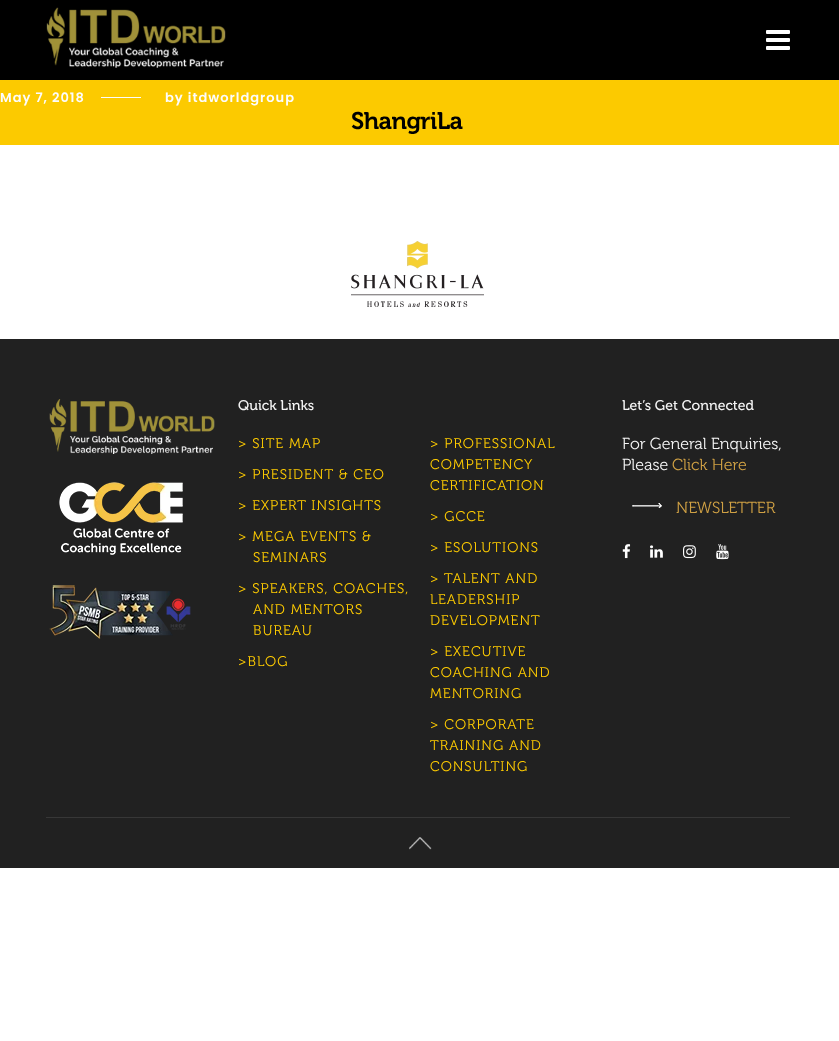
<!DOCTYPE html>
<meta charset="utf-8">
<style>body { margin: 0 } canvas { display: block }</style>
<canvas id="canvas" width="839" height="1041"></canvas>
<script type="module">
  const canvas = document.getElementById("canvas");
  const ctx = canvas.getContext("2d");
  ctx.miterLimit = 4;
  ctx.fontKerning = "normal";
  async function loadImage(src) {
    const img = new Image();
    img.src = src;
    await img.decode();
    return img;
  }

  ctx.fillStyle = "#ffffff";
  ctx.fillRect(0, 0, 839, 1041);
  ctx.fillStyle = "#000000";
  ctx.fillRect(0, 0, 839, 80);
  ctx.drawImage(await loadImage("img1.png"), 46, 7, 180, 61);
  ctx.drawImage(await loadImage("img2.png"), 766, 30, 24, 20);
  ctx.fillStyle = "#fcca00";
  ctx.fillRect(0, 80, 839, 65);
  ctx.letterSpacing = "1px";
  ctx.font = "600 13px Poppins";
  ctx.fillStyle = "#fcfcfc";
  ctx.fillText("May 7, 2018", 0, 102);
  ctx.fillRect(101, 97, 40, 1);
  ctx.fillText("by itdworldgroup", 165, 102);
  ctx.letterSpacing = "-0.5px";
  ctx.font = "600 24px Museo";
  ctx.fillStyle = "#000000";
  ctx.fillText("ShangriLa", 351, 129);
  ctx.drawImage(await loadImage("img3.png"), 351, 241, 133, 66);
  ctx.fillStyle = "#212121";
  ctx.fillRect(0, 339, 839, 529);
  ctx.drawImage(await loadImage("img4.png"), 49, 399, 166, 55);
  ctx.drawImage(await loadImage("img5.png"), 59, 482, 124, 73);
  ctx.drawImage(await loadImage("img6.png"), 49, 585, 142, 54);
  ctx.letterSpacing = "0px";
  ctx.font = "14px Museo";
  ctx.fillStyle = "#f4f4f4";
  ctx.fillText("Quick Links", 238, 410);
  ctx.letterSpacing = "1px";
  ctx.font = "300 14px Museo";
  ctx.fillStyle = "#ffcc00";
  ctx.fillText("> SITE MAP", 238, 448);
  ctx.fillText("> PRESIDENT & CEO", 238, 479);
  ctx.fillText("> EXPERT INSIGHTS", 238, 510);
  ctx.fillText("> MEGA EVENTS &", 238, 541);
  ctx.fillText("SEMINARS", 253, 562);
  ctx.fillText("> SPEAKERS, COACHES,", 238, 593);
  ctx.fillText("AND MENTORS", 253, 614);
  ctx.fillText("BUREAU", 253, 635);
  ctx.fillText(">BLOG", 238, 666);
  ctx.fillText("> PROFESSIONAL", 430, 448);
  ctx.fillText("COMPETENCY", 430, 469);
  ctx.fillText("CERTIFICATION", 430, 490);
  ctx.fillText("> GCCE", 430, 521);
  ctx.fillText("> ESOLUTIONS", 430, 552);
  ctx.fillText("> TALENT AND", 430, 583);
  ctx.fillText("LEADERSHIP", 430, 604);
  ctx.fillText("DEVELOPMENT", 430, 625);
  ctx.fillText("> EXECUTIVE", 430, 656);
  ctx.fillText("COACHING AND", 430, 677);
  ctx.fillText("MENTORING", 430, 698);
  ctx.fillText("> CORPORATE", 430, 729);
  ctx.fillText("TRAINING AND", 430, 750);
  ctx.fillText("CONSULTING", 430, 771);
  ctx.letterSpacing = "0px";
  ctx.font = "14px Museo";
  ctx.fillStyle = "#f4f4f4";
  ctx.fillText("Let’s Get Connected", 622, 410);
  ctx.font = "300 16px Museo";
  ctx.fillText("For General Enquiries,", 622, 449);
  ctx.fillText("Please", 622, 470);
  ctx.fillStyle = "#d0a144";
  ctx.fillText("Click Here", 672, 470);
  ctx.drawImage(await loadImage("img7.png"), 632, 503, 30, 5);
  ctx.fillText("NEWSLETTER", 676, 513);
  ctx.drawImage(await loadImage("img8.png"), 622, 544, 9, 15);
  ctx.drawImage(await loadImage("img9.png"), 650, 545, 13, 13);
  ctx.drawImage(await loadImage("img10.png"), 683, 545, 13, 14);
  ctx.drawImage(await loadImage("img11.png"), 716, 544, 13, 16);
  ctx.fillStyle = "#373737";
  ctx.fillRect(46, 817, 744, 1);
  ctx.drawImage(await loadImage("img12.png"), 409, 837, 23, 13);
</script>
